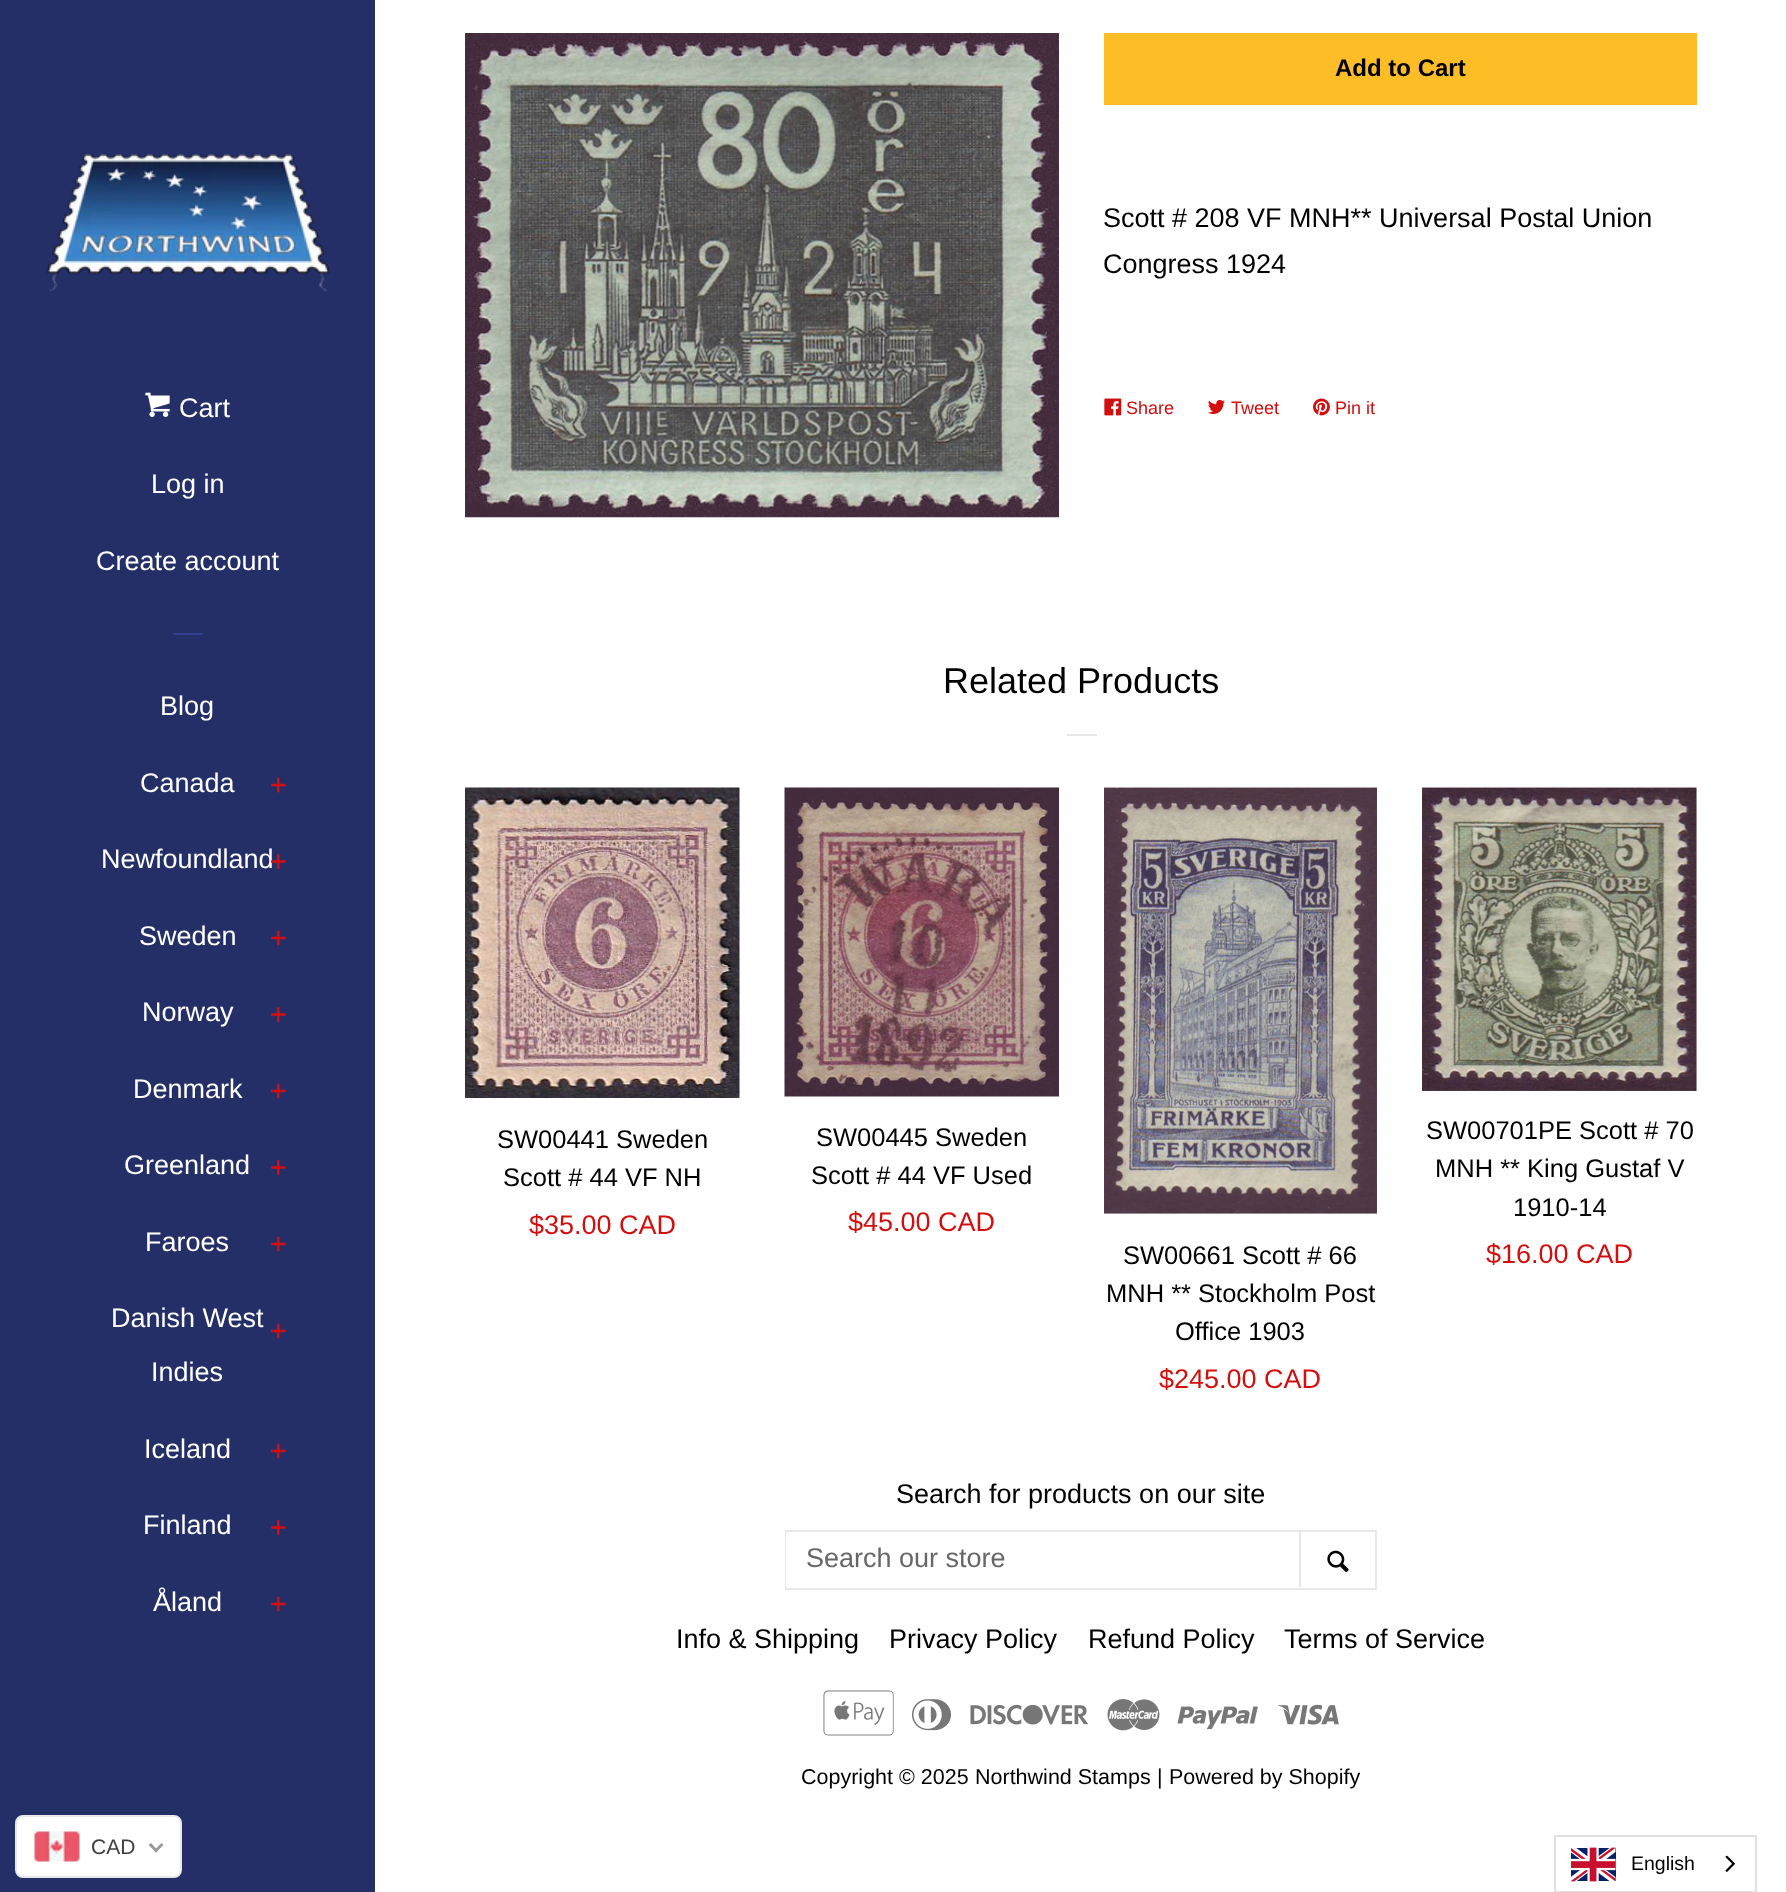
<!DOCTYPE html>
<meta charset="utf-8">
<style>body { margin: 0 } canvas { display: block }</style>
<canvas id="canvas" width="1786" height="1892"></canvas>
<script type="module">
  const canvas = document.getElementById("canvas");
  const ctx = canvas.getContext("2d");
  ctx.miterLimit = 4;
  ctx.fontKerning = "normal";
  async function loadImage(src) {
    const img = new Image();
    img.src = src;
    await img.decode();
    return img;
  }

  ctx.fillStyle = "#242f68";
  ctx.fillRect(0, 0, 1786, 1892);
  ctx.drawImage(await loadImage("img1.png"), 46, 154, 284, 137);
  ctx.drawImage(await loadImage("img2.png"), 145, 392, 25, 25);
  ctx.font = "27px Liberation Sans";
  ctx.fillStyle = "#ffffff";
  ctx.fillText("Cart", 179, 417);
  ctx.fillText("Log in", 151, 493);
  ctx.fillText("Create account", 96, 570);
  ctx.fillStyle = "#31408e";
  ctx.fillRect(173, 633, 30, 2);
  ctx.fillStyle = "#ffffff";
  ctx.fillText("Blog", 160, 715);
  ctx.fillText("Canada", 140, 792);
  ctx.drawImage(await loadImage("img3.png"), 270, 777, 16, 16);
  ctx.fillText("Newfoundland", 101, 868);
  ctx.drawImage(await loadImage("img4.png"), 270, 854, 16, 15);
  ctx.fillText("Sweden", 139, 945);
  ctx.drawImage(await loadImage("img3.png"), 270, 930, 16, 16);
  ctx.fillText("Norway", 142, 1021);
  ctx.drawImage(await loadImage("img5.png"), 270, 1007, 16, 15);
  ctx.fillText("Denmark", 133, 1098);
  ctx.drawImage(await loadImage("img3.png"), 270, 1083, 16, 16);
  ctx.fillText("Greenland", 124, 1174);
  ctx.drawImage(await loadImage("img5.png"), 270, 1160, 16, 15);
  ctx.fillText("Faroes", 145, 1251);
  ctx.drawImage(await loadImage("img3.png"), 270, 1236, 16, 16);
  ctx.fillText("Danish West", 111, 1327);
  ctx.fillText("Indies", 151, 1381);
  ctx.drawImage(await loadImage("img3.png"), 270, 1323, 16, 16);
  ctx.fillText("Iceland", 144, 1458);
  ctx.drawImage(await loadImage("img3.png"), 270, 1443, 16, 16);
  ctx.fillText("Finland", 143, 1534);
  ctx.drawImage(await loadImage("img5.png"), 270, 1520, 16, 15);
  ctx.fillText("Åland", 153, 1611);
  ctx.drawImage(await loadImage("img3.png"), 270, 1596, 16, 16);
  ctx.fillRect(375, 0, 1411, 1892);
  ctx.drawImage(await loadImage("img6.png"), 465, 33, 594, 485);
  ctx.fillStyle = "#fcbd26";
  ctx.fillRect(1104, 33, 593, 72);
  ctx.font = "bold 24px Liberation Sans";
  ctx.fillStyle = "#000000";
  ctx.fillText("Add to Cart", 1335, 76);
  ctx.font = "27px Liberation Sans";
  ctx.fillText("Scott # 208 VF MNH** Universal Postal Union", 1103, 227);
  ctx.fillText("Congress 1924", 1103, 273);
  ctx.drawImage(await loadImage("img7.png"), 1104, 398, 18, 18);
  ctx.font = "18px Liberation Sans";
  ctx.fillStyle = "#d30e0e";
  ctx.fillText("Share", 1126, 414);
  ctx.drawImage(await loadImage("img8.png"), 1208, 399, 17, 15);
  ctx.fillText("Tweet", 1231, 414);
  ctx.drawImage(await loadImage("img9.png"), 1313, 398, 17, 18);
  ctx.fillText("Pin it", 1335, 414);
  ctx.font = "36px Liberation Sans";
  ctx.fillStyle = "#000000";
  ctx.fillText("Related Products", 943, 693);
  ctx.fillStyle = "#e7e7e7";
  ctx.fillRect(1067, 734, 30, 2);
  ctx.drawImage(await loadImage("img10.png"), 465, 787, 275, 311);
  ctx.font = "25.5px Liberation Sans";
  ctx.fillStyle = "#000000";
  ctx.fillText("SW00441 Sweden", 497, 1148);
  ctx.fillText("Scott # 44 VF NH", 503, 1186);
  ctx.font = "27px Liberation Sans";
  ctx.fillStyle = "#d30e0e";
  ctx.fillText("$35.00 CAD", 529, 1234);
  ctx.drawImage(await loadImage("img11.png"), 784, 787, 275, 310);
  ctx.font = "25.5px Liberation Sans";
  ctx.fillStyle = "#000000";
  ctx.fillText("SW00445 Sweden", 816, 1146);
  ctx.fillText("Scott # 44 VF Used", 811, 1184);
  ctx.font = "27px Liberation Sans";
  ctx.fillStyle = "#d30e0e";
  ctx.fillText("$45.00 CAD", 848, 1231);
  ctx.drawImage(await loadImage("img12.png"), 1422, 787, 275, 304);
  ctx.font = "25.5px Liberation Sans";
  ctx.fillStyle = "#000000";
  ctx.fillText("SW00701PE Scott # 70", 1426, 1139);
  ctx.fillText("MNH ** King Gustaf V", 1435, 1177);
  ctx.fillText("1910-14", 1513, 1216);
  ctx.font = "27px Liberation Sans";
  ctx.fillStyle = "#d30e0e";
  ctx.fillText("$16.00 CAD", 1486, 1263);
  ctx.drawImage(await loadImage("img13.png"), 1104, 787, 273, 427);
  ctx.font = "25.5px Liberation Sans";
  ctx.fillStyle = "#000000";
  ctx.fillText("SW00661 Scott # 66", 1123, 1264);
  ctx.fillText("MNH ** Stockholm Post", 1106, 1302);
  ctx.fillText("Office 1903", 1175, 1340);
  ctx.font = "27px Liberation Sans";
  ctx.fillStyle = "#d30e0e";
  ctx.fillText("$245.00 CAD", 1159, 1388);
  ctx.fillStyle = "#000000";
  ctx.fillText("Search for products on our site", 896, 1503);
  ctx.strokeStyle = "#e7e7e7";
  ctx.lineWidth = 2;
  ctx.strokeRect(786, 1531, 590, 58);
  ctx.fillStyle = "#ffffff";
  ctx.fillRect(786, 1532, 1, 55);
  ctx.fillStyle = "#e7e7e7";
  ctx.fillRect(1299, 1532, 2, 55);
  ctx.fillStyle = "#686767";
  ctx.fillText("Search our store", 806, 1567);
  ctx.drawImage(await loadImage("img14.png"), 1327, 1550, 22, 22);
  ctx.fillStyle = "#000000";
  ctx.fillText("Info & Shipping", 676, 1648);
  ctx.fillText("Privacy Policy", 889, 1648);
  ctx.fillText("Refund Policy", 1088, 1648);
  ctx.fillText("Terms of Service", 1284, 1648);
  ctx.drawImage(await loadImage("img15.png"), 823, 1690, 71, 46);
  ctx.drawImage(await loadImage("img16.png"), 912, 1699, 39, 32);
  ctx.drawImage(await loadImage("img17.png"), 970, 1704, 119, 21);
  ctx.drawImage(await loadImage("img18.png"), 1107, 1699, 53, 32);
  ctx.drawImage(await loadImage("img19.png"), 1177, 1706, 81, 24);
  ctx.drawImage(await loadImage("img20.png"), 1278, 1704, 61, 21);
  ctx.font = "21.5px Liberation Sans";
  ctx.fillText("Copyright © 2025", 801, 1784);
  ctx.fillText("Northwind Stamps", 975, 1784);
  ctx.fillText("|", 1157, 1784);
  ctx.fillText("Powered by Shopify", 1169, 1784);
  ctx.fillStyle = "#ffffff";
  ctx.beginPath();
  ctx.roundRect(16, 1816, 165, 61, 7);
  ctx.fill();
  ctx.strokeStyle = "#e8e8e8";
  ctx.stroke();
  ctx.drawImage(await loadImage("img21.png"), 34, 1831, 46, 31);
  ctx.font = "21px Liberation Sans";
  ctx.fillStyle = "#403f3f";
  ctx.fillText("CAD", 91, 1854);
  ctx.fillStyle = "#999999";
  ctx.beginPath();
  ctx.moveTo(161.5, 1843);
  ctx.lineTo(163.5, 1845);
  ctx.lineTo(156, 1852.5);
  ctx.lineTo(154, 1850.5);
  ctx.closePath();
  ctx.fill();
  ctx.beginPath();
  ctx.moveTo(151, 1843);
  ctx.lineTo(158, 1850.5);
  ctx.lineTo(156, 1852.5);
  ctx.lineTo(148.5, 1845);
  ctx.closePath();
  ctx.fill();
  ctx.strokeStyle = "#e0e0e0";
  ctx.strokeRect(1555, 1836, 201, 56);
  ctx.drawImage(await loadImage("img22.png"), 1571, 1847, 45, 35);
  ctx.font = "19.5px Liberation Sans";
  ctx.fillStyle = "#000000";
  ctx.fillText("English", 1631, 1870);
  ctx.drawImage(await loadImage("img23.png"), 1725, 1855, 10, 17);
</script>
